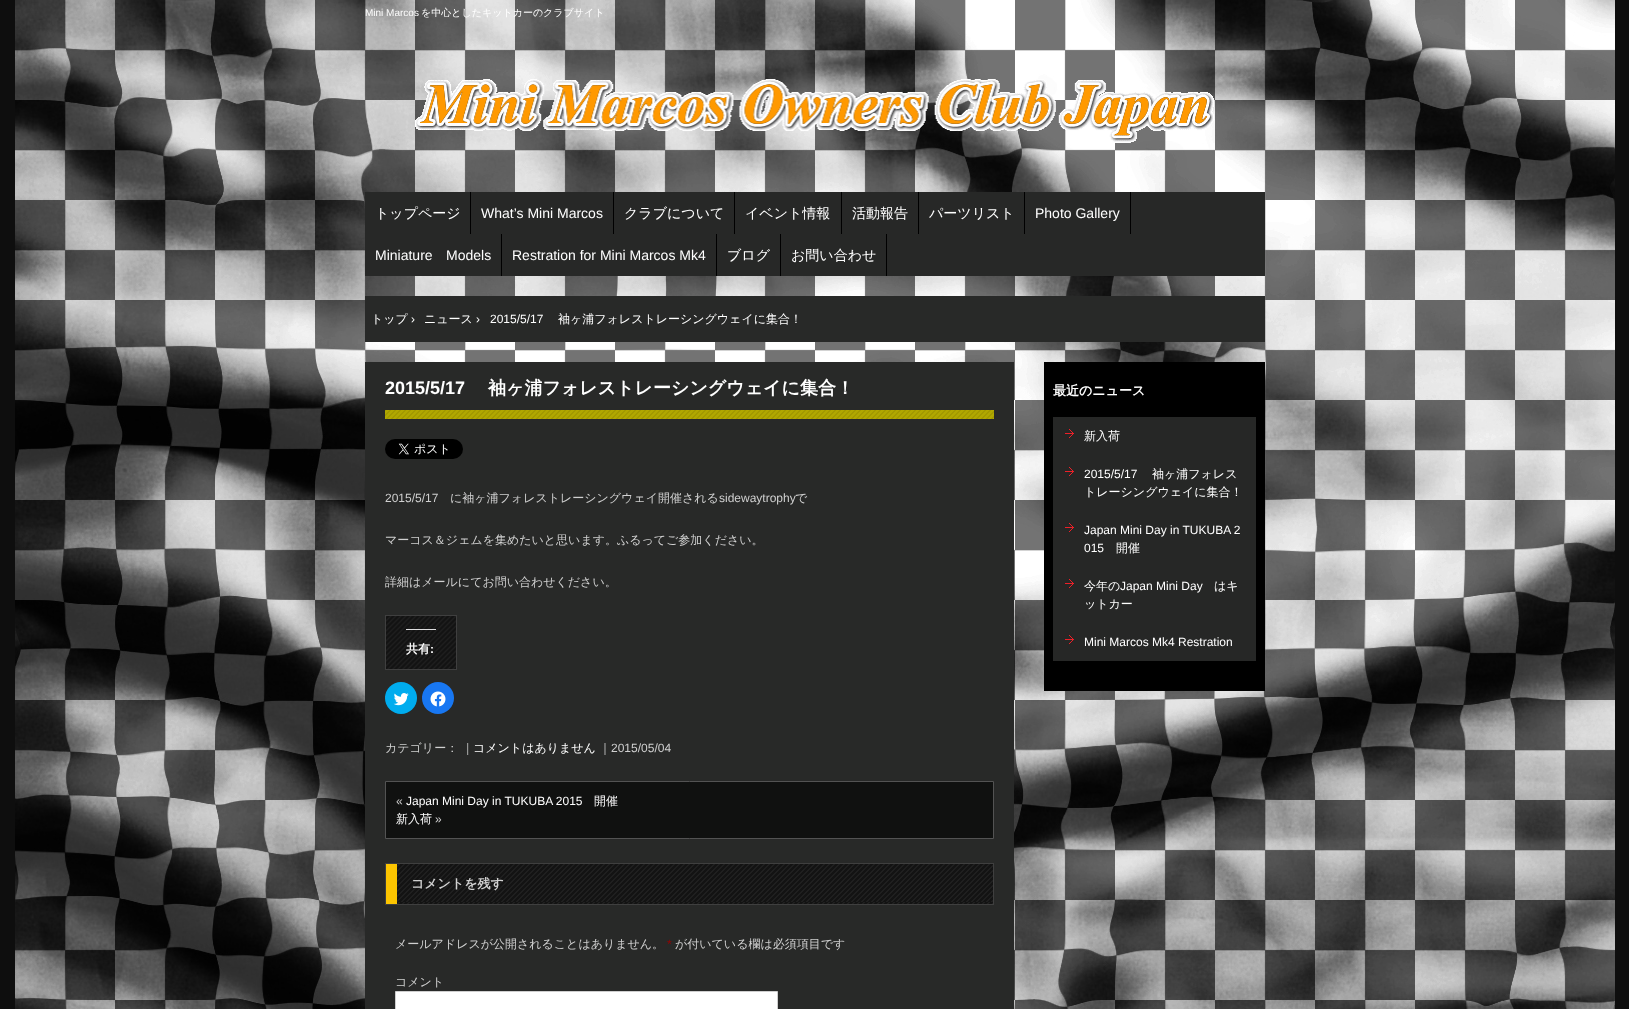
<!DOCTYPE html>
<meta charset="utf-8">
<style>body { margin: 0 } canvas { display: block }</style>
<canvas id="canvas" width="1629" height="1009"></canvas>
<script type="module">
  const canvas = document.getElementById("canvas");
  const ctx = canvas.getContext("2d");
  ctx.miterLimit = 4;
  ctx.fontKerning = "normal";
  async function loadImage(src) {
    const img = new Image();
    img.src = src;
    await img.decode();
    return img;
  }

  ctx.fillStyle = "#0e0e0e";
  ctx.fillRect(0, 0, 1629, 1009);
  ctx.drawImage(await loadImage("img1.png"), 15, 0, 1600, 1009);
  ctx.font = "10px Liberation Sans";
  ctx.fillStyle = "#ffffff";
  ctx.fillText("Mini Marcos", 365, 16);
  ctx.font = "500 10px WenQuanYi Zen Hei";
  ctx.fillText("を中心としたキットカーのクラブサイト", 421, 16);
  ctx.drawImage(await loadImage("img2.png"), 415, 79, 799, 64);
  ctx.fillStyle = "#272827";
  ctx.fillRect(365, 192, 900, 84);
  ctx.fillStyle = "#000000";
  ctx.fillRect(470, 192, 1, 42);
  ctx.font = "500 14px WenQuanYi Zen Hei";
  ctx.fillStyle = "#ffffff";
  ctx.fillText("トップページ", 375, 218);
  ctx.fillStyle = "#000000";
  ctx.fillRect(613, 192, 1, 42);
  ctx.font = "14px Liberation Sans";
  ctx.fillStyle = "#ffffff";
  ctx.fillText("What’s Mini Marcos", 481, 218);
  ctx.fillStyle = "#000000";
  ctx.fillRect(734, 192, 1, 42);
  ctx.font = "500 14px WenQuanYi Zen Hei";
  ctx.fillStyle = "#ffffff";
  ctx.fillText("クラブについて", 624, 218);
  ctx.fillStyle = "#000000";
  ctx.fillRect(841, 192, 1, 42);
  ctx.fillStyle = "#ffffff";
  ctx.fillText("イベント情報", 745, 218);
  ctx.fillStyle = "#000000";
  ctx.fillRect(918, 192, 1, 42);
  ctx.fillStyle = "#ffffff";
  ctx.fillText("活動報告", 852, 218);
  ctx.fillStyle = "#000000";
  ctx.fillRect(1024, 192, 1, 42);
  ctx.fillStyle = "#ffffff";
  ctx.fillText("パーツリスト", 929, 218);
  ctx.fillStyle = "#000000";
  ctx.fillRect(1130, 192, 1, 42);
  ctx.font = "14px Liberation Sans";
  ctx.fillStyle = "#ffffff";
  ctx.fillText("Photo Gallery", 1035, 218);
  ctx.fillStyle = "#000000";
  ctx.fillRect(501, 234, 1, 42);
  ctx.fillStyle = "#ffffff";
  ctx.fillText("Miniature", 375, 260);
  ctx.fillText("Models", 446, 260);
  ctx.fillStyle = "#000000";
  ctx.fillRect(716, 234, 1, 42);
  ctx.fillStyle = "#ffffff";
  ctx.fillText("Restration for Mini Marcos Mk4", 512, 260);
  ctx.fillStyle = "#000000";
  ctx.fillRect(780, 234, 1, 42);
  ctx.font = "500 14px WenQuanYi Zen Hei";
  ctx.fillStyle = "#ffffff";
  ctx.fillText("ブログ", 727, 260);
  ctx.fillStyle = "#000000";
  ctx.fillRect(886, 234, 1, 42);
  ctx.fillStyle = "#ffffff";
  ctx.fillText("お問い合わせ", 791, 260);
  ctx.fillStyle = "#282928";
  ctx.fillRect(365, 296, 900, 46);
  ctx.font = "500 12px WenQuanYi Zen Hei";
  ctx.fillStyle = "#ffffff";
  ctx.fillText("トップ", 371, 323);
  ctx.font = "12px Liberation Sans";
  ctx.fillText("›", 411, 323);
  ctx.font = "500 12px WenQuanYi Zen Hei";
  ctx.fillText("ニュース", 424, 323);
  ctx.font = "12px Liberation Sans";
  ctx.fillText("›", 476, 323);
  ctx.fillText("2015/5/17", 490, 323);
  ctx.font = "500 12px WenQuanYi Zen Hei";
  ctx.fillText("袖ヶ浦フォレストレーシングウェイに集合！", 558, 323);
  ctx.fillStyle = "#282928";
  ctx.fillRect(365, 362, 649, 647);
  ctx.drawImage(await loadImage("img3.png"), 385, 410, 609, 9);
  ctx.font = "bold 18px Liberation Sans";
  ctx.fillStyle = "#ffffff";
  ctx.fillText("2015/5/17", 385, 394);
  ctx.font = "bold 18px WenQuanYi Zen Hei";
  ctx.fillText("袖ヶ浦フォレストレーシングウェイに集合！", 488, 394);
  ctx.drawImage(await loadImage("img4.png"), 385, 439, 78, 20);
  ctx.font = "12px Liberation Sans";
  ctx.fillStyle = "#d0d0d0";
  ctx.fillText("2015/5/17", 385, 502);
  ctx.font = "500 12px WenQuanYi Zen Hei";
  ctx.fillText("に袖ヶ浦フォレストレーシングウェイ開催される", 450, 502);
  ctx.font = "12px Liberation Sans";
  ctx.fillText("sidewaytrophy", 719, 502);
  ctx.font = "500 12px WenQuanYi Zen Hei";
  ctx.fillText("で", 795, 502);
  ctx.fillText("マーコス＆ジェムを集めたいと思います。ふるってご参加ください。", 385, 544);
  ctx.fillText("詳細はメールにてお問い合わせください。", 385, 586);
  ctx.drawImage(await loadImage("img5.png"), 386, 616, 70, 53);
  ctx.strokeStyle = "#3f3f3f";
  ctx.strokeRect(385.5, 615.5, 71, 54);
  ctx.fillStyle = "#dcdcde";
  ctx.fillRect(406, 629, 30, 1);
  ctx.font = "bold 12px WenQuanYi Zen Hei";
  ctx.fillStyle = "#ffffff";
  ctx.fillText("共有", 406, 653);
  ctx.font = "bold 12px Liberation Sans";
  ctx.fillText(":", 430, 653);
  ctx.drawImage(await loadImage("img6.png"), 385, 692, 2, 9);
  ctx.fillStyle = "#00acee";
  ctx.beginPath();
  ctx.arc(401, 698, 16, 0, Math.PI * 2);
  ctx.fill();
  ctx.drawImage(await loadImage("img7.png"), 393, 693, 16, 13);
  ctx.drawImage(await loadImage("img6.png"), 422, 692, 2, 9);
  ctx.fillStyle = "#1877f2";
  ctx.beginPath();
  ctx.arc(438, 698, 16, 0, Math.PI * 2);
  ctx.fill();
  ctx.drawImage(await loadImage("img8.png"), 430, 691, 16, 16);
  ctx.font = "500 12px WenQuanYi Zen Hei";
  ctx.fillStyle = "#d0d0d0";
  ctx.fillText("カテゴリー： ｜", 385, 752);
  ctx.fillStyle = "#ffffff";
  ctx.fillText("コメントはありません", 473, 752);
  ctx.fillStyle = "#d0d0d0";
  ctx.fillText("｜", 599, 752);
  ctx.font = "12px Liberation Sans";
  ctx.fillText("2015/05/04", 611, 752);
  ctx.fillStyle = "#101110";
  ctx.beginPath();
  ctx.rect(385.5, 781.5, 608, 57);
  ctx.fill();
  ctx.strokeStyle = "#535353";
  ctx.stroke();
  ctx.fillStyle = "#d0d0d0";
  ctx.fillText("«", 396, 805);
  ctx.fillStyle = "#ffffff";
  ctx.fillText("Japan Mini Day in TUKUBA 2015", 406, 805);
  ctx.font = "500 12px WenQuanYi Zen Hei";
  ctx.fillText("開催", 594, 805);
  ctx.fillText("新入荷", 396, 823);
  ctx.font = "12px Liberation Sans";
  ctx.fillStyle = "#d0d0d0";
  ctx.fillText("»", 435, 823);
  ctx.drawImage(await loadImage("img9.png"), 386, 864, 607, 40);
  ctx.strokeStyle = "#3f3f3f";
  ctx.strokeRect(385.5, 863.5, 608, 41);
  ctx.font = "bold 13px WenQuanYi Zen Hei";
  ctx.fillText("コメントを残す", 411, 888);
  ctx.font = "500 12px WenQuanYi Zen Hei";
  ctx.fillText("メールアドレスが公開されることはありません。", 395, 948);
  ctx.font = "12px Liberation Sans";
  ctx.fillStyle = "#940303";
  ctx.fillText("*", 667, 948);
  ctx.font = "500 12px WenQuanYi Zen Hei";
  ctx.fillStyle = "#d0d0d0";
  ctx.fillText("が付いている欄は必須項目です", 675, 948);
  ctx.fillText("コメント", 395, 986);
  ctx.fillStyle = "#ffffff";
  ctx.beginPath();
  ctx.rect(395.5, 991.5, 382, 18);
  ctx.fill();
  ctx.strokeStyle = "#cecece";
  ctx.stroke();
  ctx.fillStyle = "#000000";
  ctx.fillRect(1044, 362, 221, 329);
  ctx.font = "bold 13px WenQuanYi Zen Hei";
  ctx.fillStyle = "#ffffff";
  ctx.fillText("最近のニュース", 1053, 395);
  ctx.fillStyle = "#262726";
  ctx.fillRect(1053, 417, 203, 244);
  ctx.drawImage(await loadImage("img10.png"), 1065, 429, 9, 9);
  ctx.font = "500 12px WenQuanYi Zen Hei";
  ctx.fillStyle = "#ffffff";
  ctx.fillText("新入荷", 1084, 440);
  ctx.drawImage(await loadImage("img10.png"), 1065, 467, 9, 9);
  ctx.font = "12px Liberation Sans";
  ctx.fillText("2015/5/17", 1084, 478);
  ctx.font = "500 12px WenQuanYi Zen Hei";
  ctx.fillText("袖ヶ浦フォレス", 1152, 478);
  ctx.fillText("トレーシングウェイに集合！", 1084, 496);
  ctx.drawImage(await loadImage("img10.png"), 1065, 523, 9, 9);
  ctx.font = "12px Liberation Sans";
  ctx.fillText("Japan Mini Day in TUKUBA 2", 1084, 534);
  ctx.fillText("015", 1084, 552);
  ctx.font = "500 12px WenQuanYi Zen Hei";
  ctx.fillText("開催", 1116, 552);
  ctx.drawImage(await loadImage("img10.png"), 1065, 579, 9, 9);
  ctx.fillText("今年の", 1084, 590);
  ctx.font = "12px Liberation Sans";
  ctx.fillText("Japan Mini Day", 1120, 590);
  ctx.font = "500 12px WenQuanYi Zen Hei";
  ctx.fillText("はキ", 1214, 590);
  ctx.fillText("ットカー", 1084, 608);
  ctx.drawImage(await loadImage("img10.png"), 1065, 635, 9, 9);
  ctx.font = "12px Liberation Sans";
  ctx.fillText("Mini Marcos Mk4 Restration", 1084, 646);
</script>
